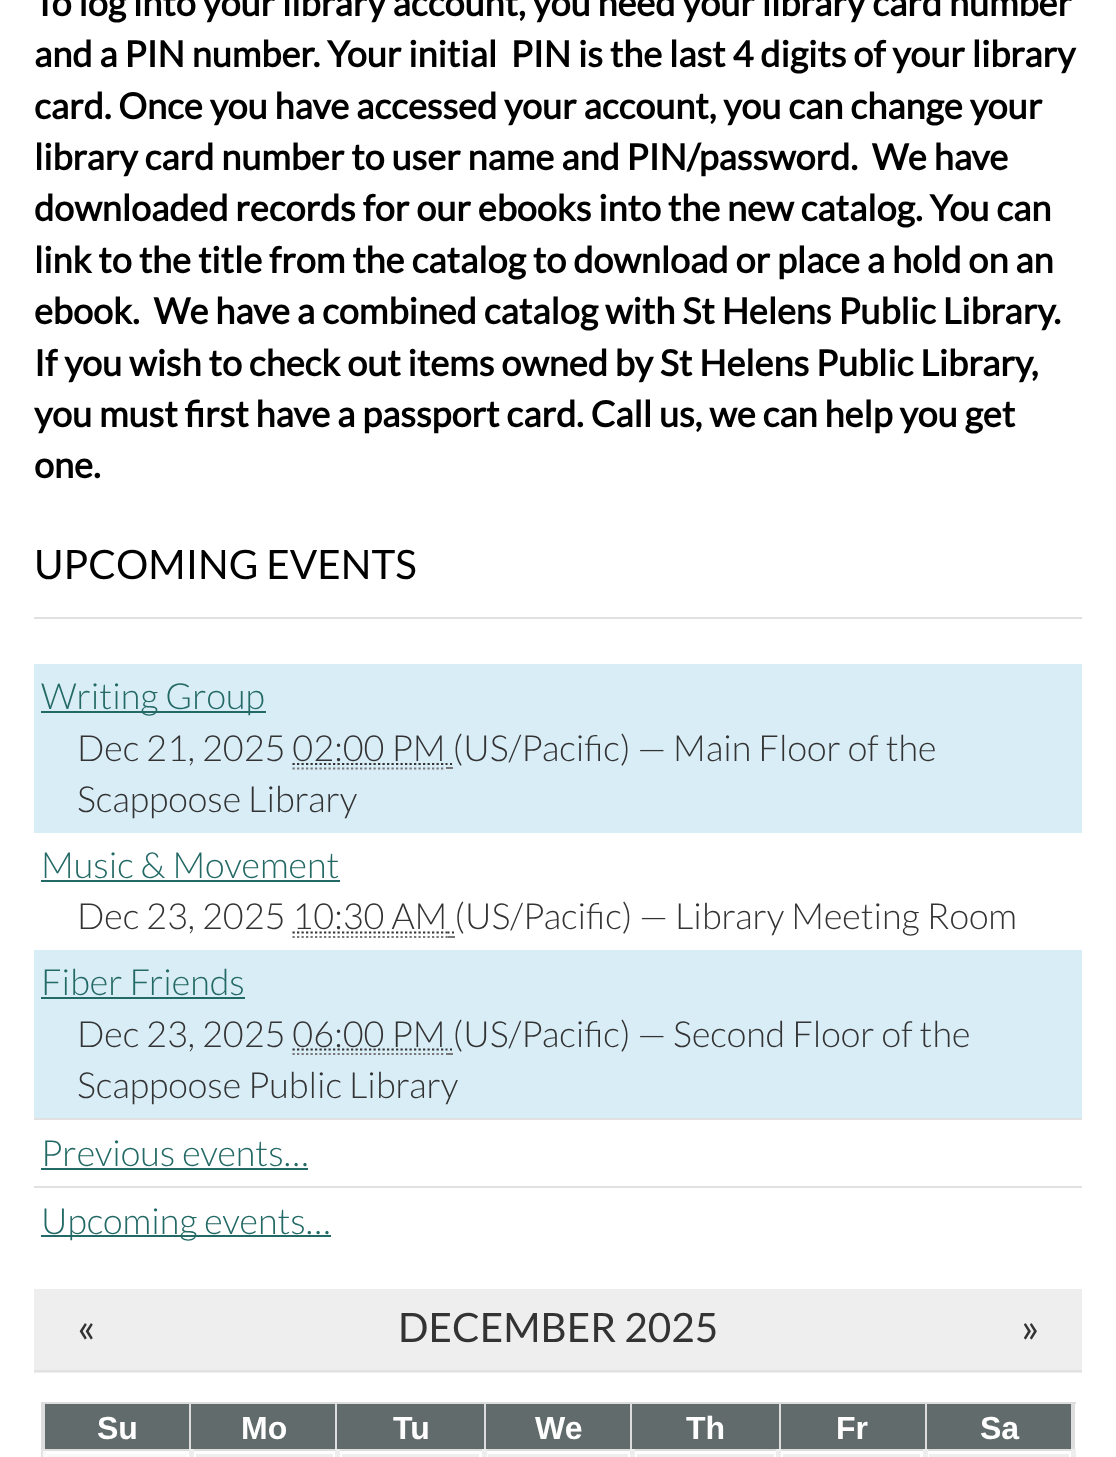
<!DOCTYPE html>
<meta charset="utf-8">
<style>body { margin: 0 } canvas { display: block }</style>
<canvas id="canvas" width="1116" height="1457"></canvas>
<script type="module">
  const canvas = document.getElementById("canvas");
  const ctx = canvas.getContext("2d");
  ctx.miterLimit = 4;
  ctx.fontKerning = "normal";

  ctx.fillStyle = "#ffffff";
  ctx.fillRect(0, 0, 1116, 1457);
  ctx.fillStyle = "#f8f8f8";
  ctx.fillRect(43, 1449, 3, 8);
  ctx.font = "bold 36px Lato";
  ctx.fillStyle = "#000000";
  ctx.fillText("To log into your library account, you need your library card number", 34, 16);
  ctx.fillText("and a PIN number. Your initial  PIN is the last 4 digits of your library", 34, 67);
  ctx.fillText("card. Once you have accessed your account, you can change your", 34, 119);
  ctx.fillText("library card number to user name and PIN/password.  We have", 34, 170);
  ctx.fillText("downloaded records for our ebooks into the new catalog. You can", 34, 221);
  ctx.fillText("link to the title from the catalog to download or place a hold on an", 34, 273);
  ctx.fillText("ebook.  We have a combined catalog with St Helens Public Library.", 34, 324);
  ctx.fillText("If you wish to check out items owned by St Helens Public Library,", 34, 376);
  ctx.fillText("you must first have a passport card. Call us, we can help you get", 34, 427);
  ctx.fillText("one.", 34, 478);
  ctx.fillStyle = "#e1e1e1";
  ctx.fillRect(34, 617, 1048, 2);
  ctx.font = "40.5px Lato";
  ctx.fillStyle = "#000000";
  ctx.fillText("UPCOMING EVENTS", 34, 579);
  ctx.fillStyle = "#d9edf7";
  ctx.fillRect(34, 664, 1048, 169);
  ctx.fillStyle = "#236965";
  ctx.fillRect(41, 711, 225, 2);
  ctx.font = "300 36px Lato";
  ctx.fillText("Writing Group", 41, 709);
  ctx.fillStyle = "#333333";
  ctx.fillText("Dec 21, 2025 02:00 PM (US/Pacific) — Main Floor of the", 77, 761);
  ctx.beginPath();
  ctx.moveTo(292.5, 764);
  ctx.lineTo(445.5, 764);
  ctx.strokeStyle = "#333333";
  ctx.lineWidth = 2.2;
  ctx.setLineDash([2.25, 2.25]);
  ctx.stroke();
  ctx.beginPath();
  ctx.moveTo(445.5, 764);
  ctx.lineTo(447.5, 764);
  ctx.moveTo(450, 764);
  ctx.lineTo(452, 764);
  ctx.setLineDash([]);
  ctx.stroke();
  ctx.beginPath();
  ctx.moveTo(292.5, 768.5);
  ctx.lineTo(445.5, 768.5);
  ctx.strokeStyle = "#777777";
  ctx.setLineDash([2.25, 2.25]);
  ctx.stroke();
  ctx.fillStyle = "#777777";
  ctx.fillRect(446, 767, 7, 2);
  ctx.fillStyle = "#333333";
  ctx.fillText("Scappoose Library", 77, 812);
  ctx.fillStyle = "#236965";
  ctx.fillText("Music & Movement", 41, 878);
  ctx.fillRect(41, 880, 299, 2);
  ctx.fillStyle = "#333333";
  ctx.fillText("Dec 23, 2025 10:30 AM (US/Pacific) — Library Meeting Room", 77, 929);
  ctx.beginPath();
  ctx.moveTo(292.5, 932.5);
  ctx.lineTo(447.5, 932.5);
  ctx.strokeStyle = "#333333";
  ctx.stroke();
  ctx.beginPath();
  ctx.moveTo(447.5, 932.5);
  ctx.lineTo(449.5, 932.5);
  ctx.moveTo(452, 932.5);
  ctx.lineTo(454, 932.5);
  ctx.setLineDash([]);
  ctx.stroke();
  ctx.beginPath();
  ctx.moveTo(292.5, 937);
  ctx.lineTo(448, 937);
  ctx.strokeStyle = "#777777";
  ctx.setLineDash([2.25, 2.25]);
  ctx.stroke();
  ctx.fillStyle = "#777777";
  ctx.fillRect(448, 936, 7, 2);
  ctx.fillStyle = "#d9edf7";
  ctx.fillRect(34, 950, 1048, 168);
  ctx.fillStyle = "#236965";
  ctx.fillText("Fiber Friends", 41, 995);
  ctx.fillRect(41, 997, 204, 2);
  ctx.fillStyle = "#333333";
  ctx.fillText("Dec 23, 2025 06:00 PM (US/Pacific) — Second Floor of the", 77, 1047);
  ctx.beginPath();
  ctx.moveTo(292.5, 1049.5);
  ctx.lineTo(445.5, 1049.5);
  ctx.strokeStyle = "#333333";
  ctx.stroke();
  ctx.beginPath();
  ctx.moveTo(445.5, 1049.5);
  ctx.lineTo(447.5, 1049.5);
  ctx.moveTo(450, 1049.5);
  ctx.lineTo(452, 1049.5);
  ctx.setLineDash([]);
  ctx.stroke();
  ctx.beginPath();
  ctx.moveTo(292.5, 1054);
  ctx.lineTo(445.5, 1054);
  ctx.strokeStyle = "#777777";
  ctx.setLineDash([2.25, 2.25]);
  ctx.stroke();
  ctx.fillStyle = "#777777";
  ctx.fillRect(446, 1053, 7, 2);
  ctx.fillStyle = "#333333";
  ctx.fillText("Scappoose Public Library", 77, 1098);
  ctx.fillStyle = "#e1e1e1";
  ctx.fillRect(34, 1118, 1048, 2);
  ctx.fillStyle = "#236965";
  ctx.fillText("Previous events…", 41, 1166);
  ctx.fillRect(41, 1168, 267, 2);
  ctx.fillStyle = "#e1e1e1";
  ctx.fillRect(34, 1186, 1048, 2);
  ctx.fillStyle = "#236965";
  ctx.fillRect(41, 1235, 290, 2);
  ctx.fillText("Upcoming events…", 41, 1234);
  ctx.fillStyle = "#eeeeee";
  ctx.fillRect(34, 1289, 1048, 84);
  ctx.fillStyle = "#e1e1e1";
  ctx.fillRect(34, 1370, 1048, 2);
  ctx.font = "40.5px Lato";
  ctx.fillStyle = "#333333";
  ctx.fillText("«", 77, 1342);
  ctx.fillText("DECEMBER 2025", 398, 1342);
  ctx.fillText("»", 1021, 1342);
  ctx.fillStyle = "#dddddd";
  ctx.fillRect(41, 1402, 1035, 2);
  ctx.fillRect(1073, 1402, 2, 55);
  ctx.fillRect(41, 1402, 2, 55);
  ctx.fillStyle = "#e4e4e4";
  ctx.fillRect(41, 1449, 2, 8);
  ctx.fillStyle = "#616b6b";
  ctx.fillRect(45, 1404, 1026, 45);
  ctx.fillStyle = "#dddddd";
  ctx.fillRect(189, 1449, 884, 2);
  ctx.fillRect(189, 1402, 2, 49);
  ctx.fillRect(43, 1449, 148, 2);
  ctx.fillStyle = "#e4e4e4";
  ctx.fillRect(43, 1449, 3, 2);
  ctx.fillStyle = "#dddddd";
  ctx.fillRect(43, 1402, 2, 49);
  ctx.fillStyle = "#e4e4e4";
  ctx.fillRect(43, 1449, 2, 2);
  ctx.font = "bold 32px Liberation Sans";
  ctx.fillStyle = "#ffffff";
  ctx.fillText("Su", 97, 1439);
  ctx.fillText("Mo", 241, 1439);
  ctx.fillStyle = "#dddddd";
  ctx.fillRect(335, 1402, 2, 49);
  ctx.fillStyle = "#ffffff";
  ctx.fillText("Tu", 393, 1439);
  ctx.fillStyle = "#dddddd";
  ctx.fillRect(484, 1402, 2, 49);
  ctx.fillStyle = "#ffffff";
  ctx.fillText("We", 535, 1439);
  ctx.fillStyle = "#dddddd";
  ctx.fillRect(630, 1402, 2, 49);
  ctx.fillStyle = "#ffffff";
  ctx.fillText("Th", 686, 1439);
  ctx.fillStyle = "#dddddd";
  ctx.fillRect(779, 1402, 2, 49);
  ctx.fillStyle = "#ffffff";
  ctx.fillText("Fr", 836, 1439);
  ctx.fillStyle = "#dddddd";
  ctx.fillRect(1071, 1402, 2, 49);
  ctx.fillRect(925, 1402, 2, 49);
  ctx.fillStyle = "#ffffff";
  ctx.fillText("Sa", 980, 1439);
  ctx.fillStyle = "#eeeeee";
  ctx.fillRect(196, 1454, 137, 3);
  ctx.fillRect(189, 1449, 5, 8);
  ctx.fillRect(929, 1454, 140, 3);
  ctx.fillRect(1071, 1449, 5, 8);
  ctx.fillRect(923, 1449, 5, 8);
  ctx.fillStyle = "#f8f8f8";
  ctx.fillRect(47, 1454, 140, 3);
  ctx.fillStyle = "#eeeeee";
  ctx.fillRect(342, 1454, 137, 3);
  ctx.fillRect(335, 1449, 5, 8);
  ctx.fillRect(488, 1454, 140, 3);
  ctx.fillRect(482, 1449, 5, 8);
  ctx.fillRect(637, 1454, 137, 3);
  ctx.fillRect(630, 1449, 5, 8);
  ctx.fillRect(783, 1454, 137, 3);
  ctx.fillRect(776, 1449, 5, 8);
</script>
